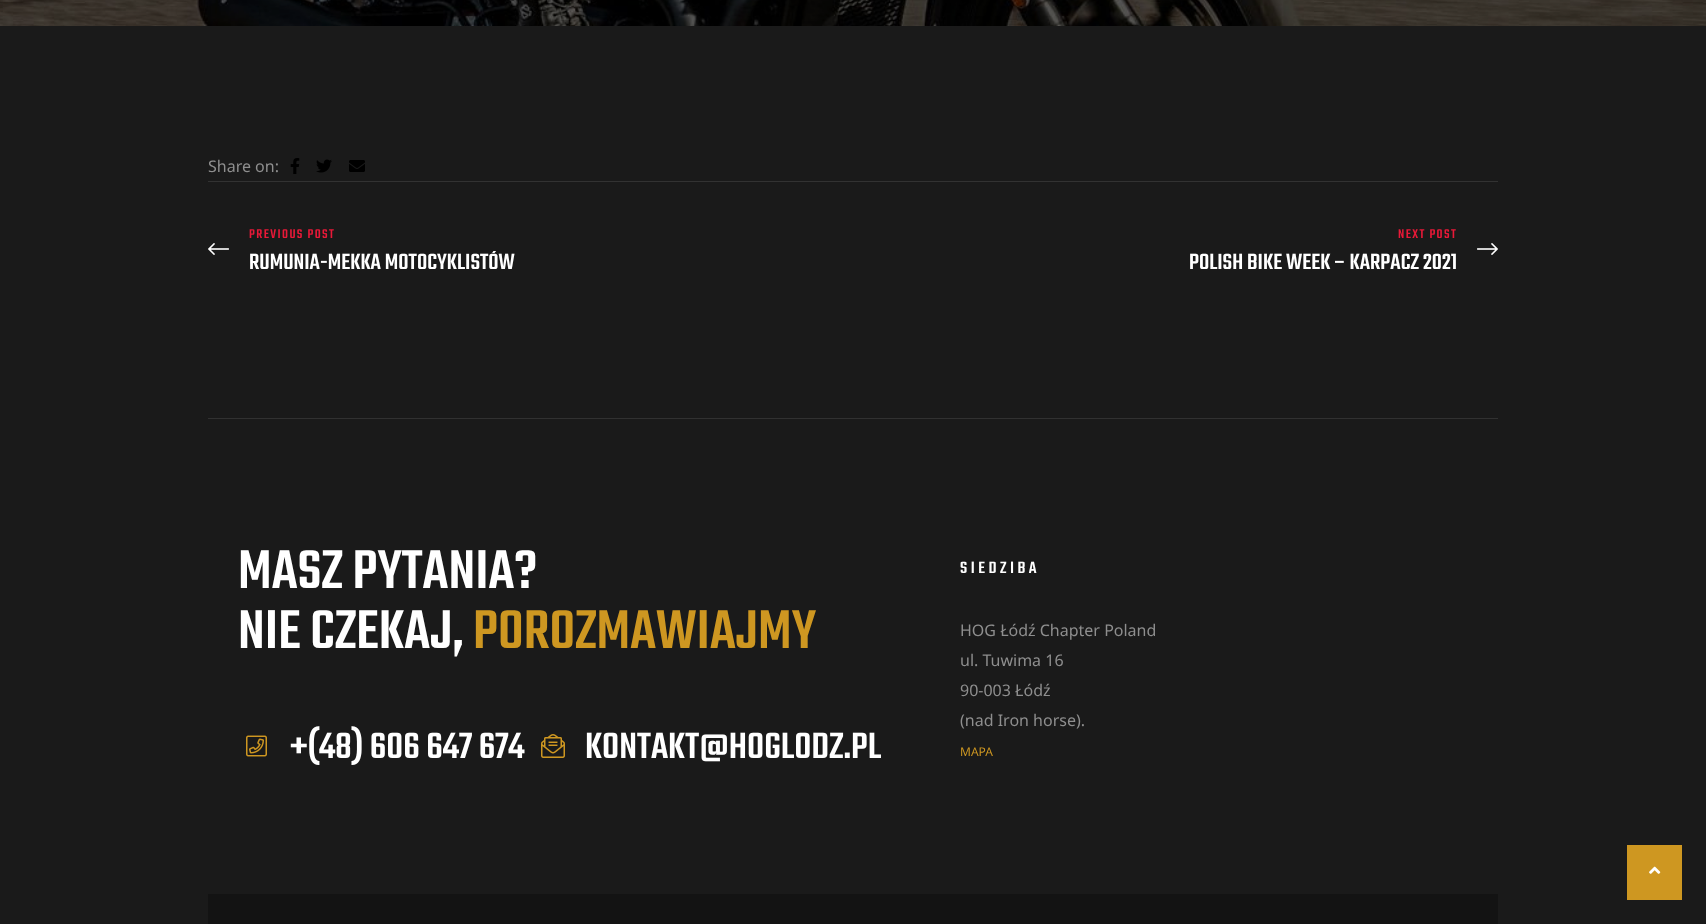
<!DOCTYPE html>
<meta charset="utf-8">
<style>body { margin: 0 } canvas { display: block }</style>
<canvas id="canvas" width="1706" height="924"></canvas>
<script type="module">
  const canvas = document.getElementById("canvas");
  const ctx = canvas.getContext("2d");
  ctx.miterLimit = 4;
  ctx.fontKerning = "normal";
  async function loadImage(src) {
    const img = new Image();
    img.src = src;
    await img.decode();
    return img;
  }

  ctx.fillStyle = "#1a1a1a";
  ctx.fillRect(0, 0, 1706, 924);
  ctx.drawImage(await loadImage("img1.png"), 0, 0, 1706, 26);
  ctx.font = "16px Noto Sans";
  ctx.fillStyle = "#8e8e8e";
  ctx.fillText("Share on:", 208, 172);
  ctx.drawImage(await loadImage("img2.png"), 290, 158, 10, 16);
  ctx.drawImage(await loadImage("img3.png"), 316, 159, 16, 14);
  ctx.drawImage(await loadImage("img4.png"), 349, 160, 16, 12);
  ctx.fillStyle = "#323232";
  ctx.fillRect(208, 181, 1290, 1);
  ctx.drawImage(await loadImage("img5.png"), 208, 243, 21, 12);
  ctx.letterSpacing = "1.4px";
  ctx.font = "500 14px Teko";
  ctx.fillStyle = "#e81938";
  ctx.fillText("PREVIOUS POST", 249, 238);
  ctx.save();
  ctx.beginPath();
  ctx.rect(249, 251, 266, 24);
  ctx.clip();
  ctx.letterSpacing = "0px";
  ctx.font = "500 24px Teko";
  ctx.fillStyle = "#ffffff";
  ctx.fillText("RUMUNIA-MEKKA MOTOCYKLISTÓW", 249, 269);
  ctx.restore();
  ctx.fillText("NEXT POST", 1398, 238);
  ctx.letterSpacing = "0px";
  ctx.font = "500 24px Teko";
  ctx.fillStyle = "#ffffff";
  ctx.fillText("POLISH BIKE WEEK – KARPACZ 2021", 1189, 269);
  ctx.drawImage(await loadImage("img6.png"), 1477, 243, 21, 12);
  ctx.fillStyle = "#313131";
  ctx.fillRect(208, 418, 1290, 1);
  ctx.font = "500 60px Teko";
  ctx.fillStyle = "#ffffff";
  ctx.fillText("MASZ PYTANIA?", 238, 588);
  ctx.fillText("NIE CZEKAJ,", 238, 648);
  ctx.fillStyle = "#ce9721";
  ctx.fillText("POROZMAWIAJMY", 473, 648);
  ctx.drawImage(await loadImage("img7.png"), 246, 735, 21, 22);
  ctx.font = "500 40px Teko";
  ctx.fillStyle = "#ffffff";
  ctx.fillText("+(48) 606 647 674", 290, 758);
  ctx.drawImage(await loadImage("img8.png"), 541, 734, 24, 24);
  ctx.fillText("KONTAKT@HOGLODZ.PL", 585, 758);
  ctx.letterSpacing = "3.5px";
  ctx.font = "500 18px Teko";
  ctx.fillText("SIEDZIBA", 960, 573);
  ctx.letterSpacing = "0px";
  ctx.font = "16px Noto Sans";
  ctx.fillStyle = "#8e8e8e";
  ctx.fillText("HOG Łódź Chapter Poland", 960, 636);
  ctx.fillText("ul. Tuwima 16", 960, 666);
  ctx.fillText("90-003 Łódź", 960, 696);
  ctx.fillText("(nad Iron horse).", 960, 726);
  ctx.font = "12px Noto Sans";
  ctx.fillStyle = "#ce9721";
  ctx.fillText("MAPA", 960, 756);
  ctx.fillStyle = "#131313";
  ctx.fillRect(208, 894, 1290, 30);
  ctx.fillStyle = "#ce9721";
  ctx.fillRect(1627, 845, 55, 55);
  ctx.drawImage(await loadImage("img9.png"), 1649, 866, 12, 8);
</script>
